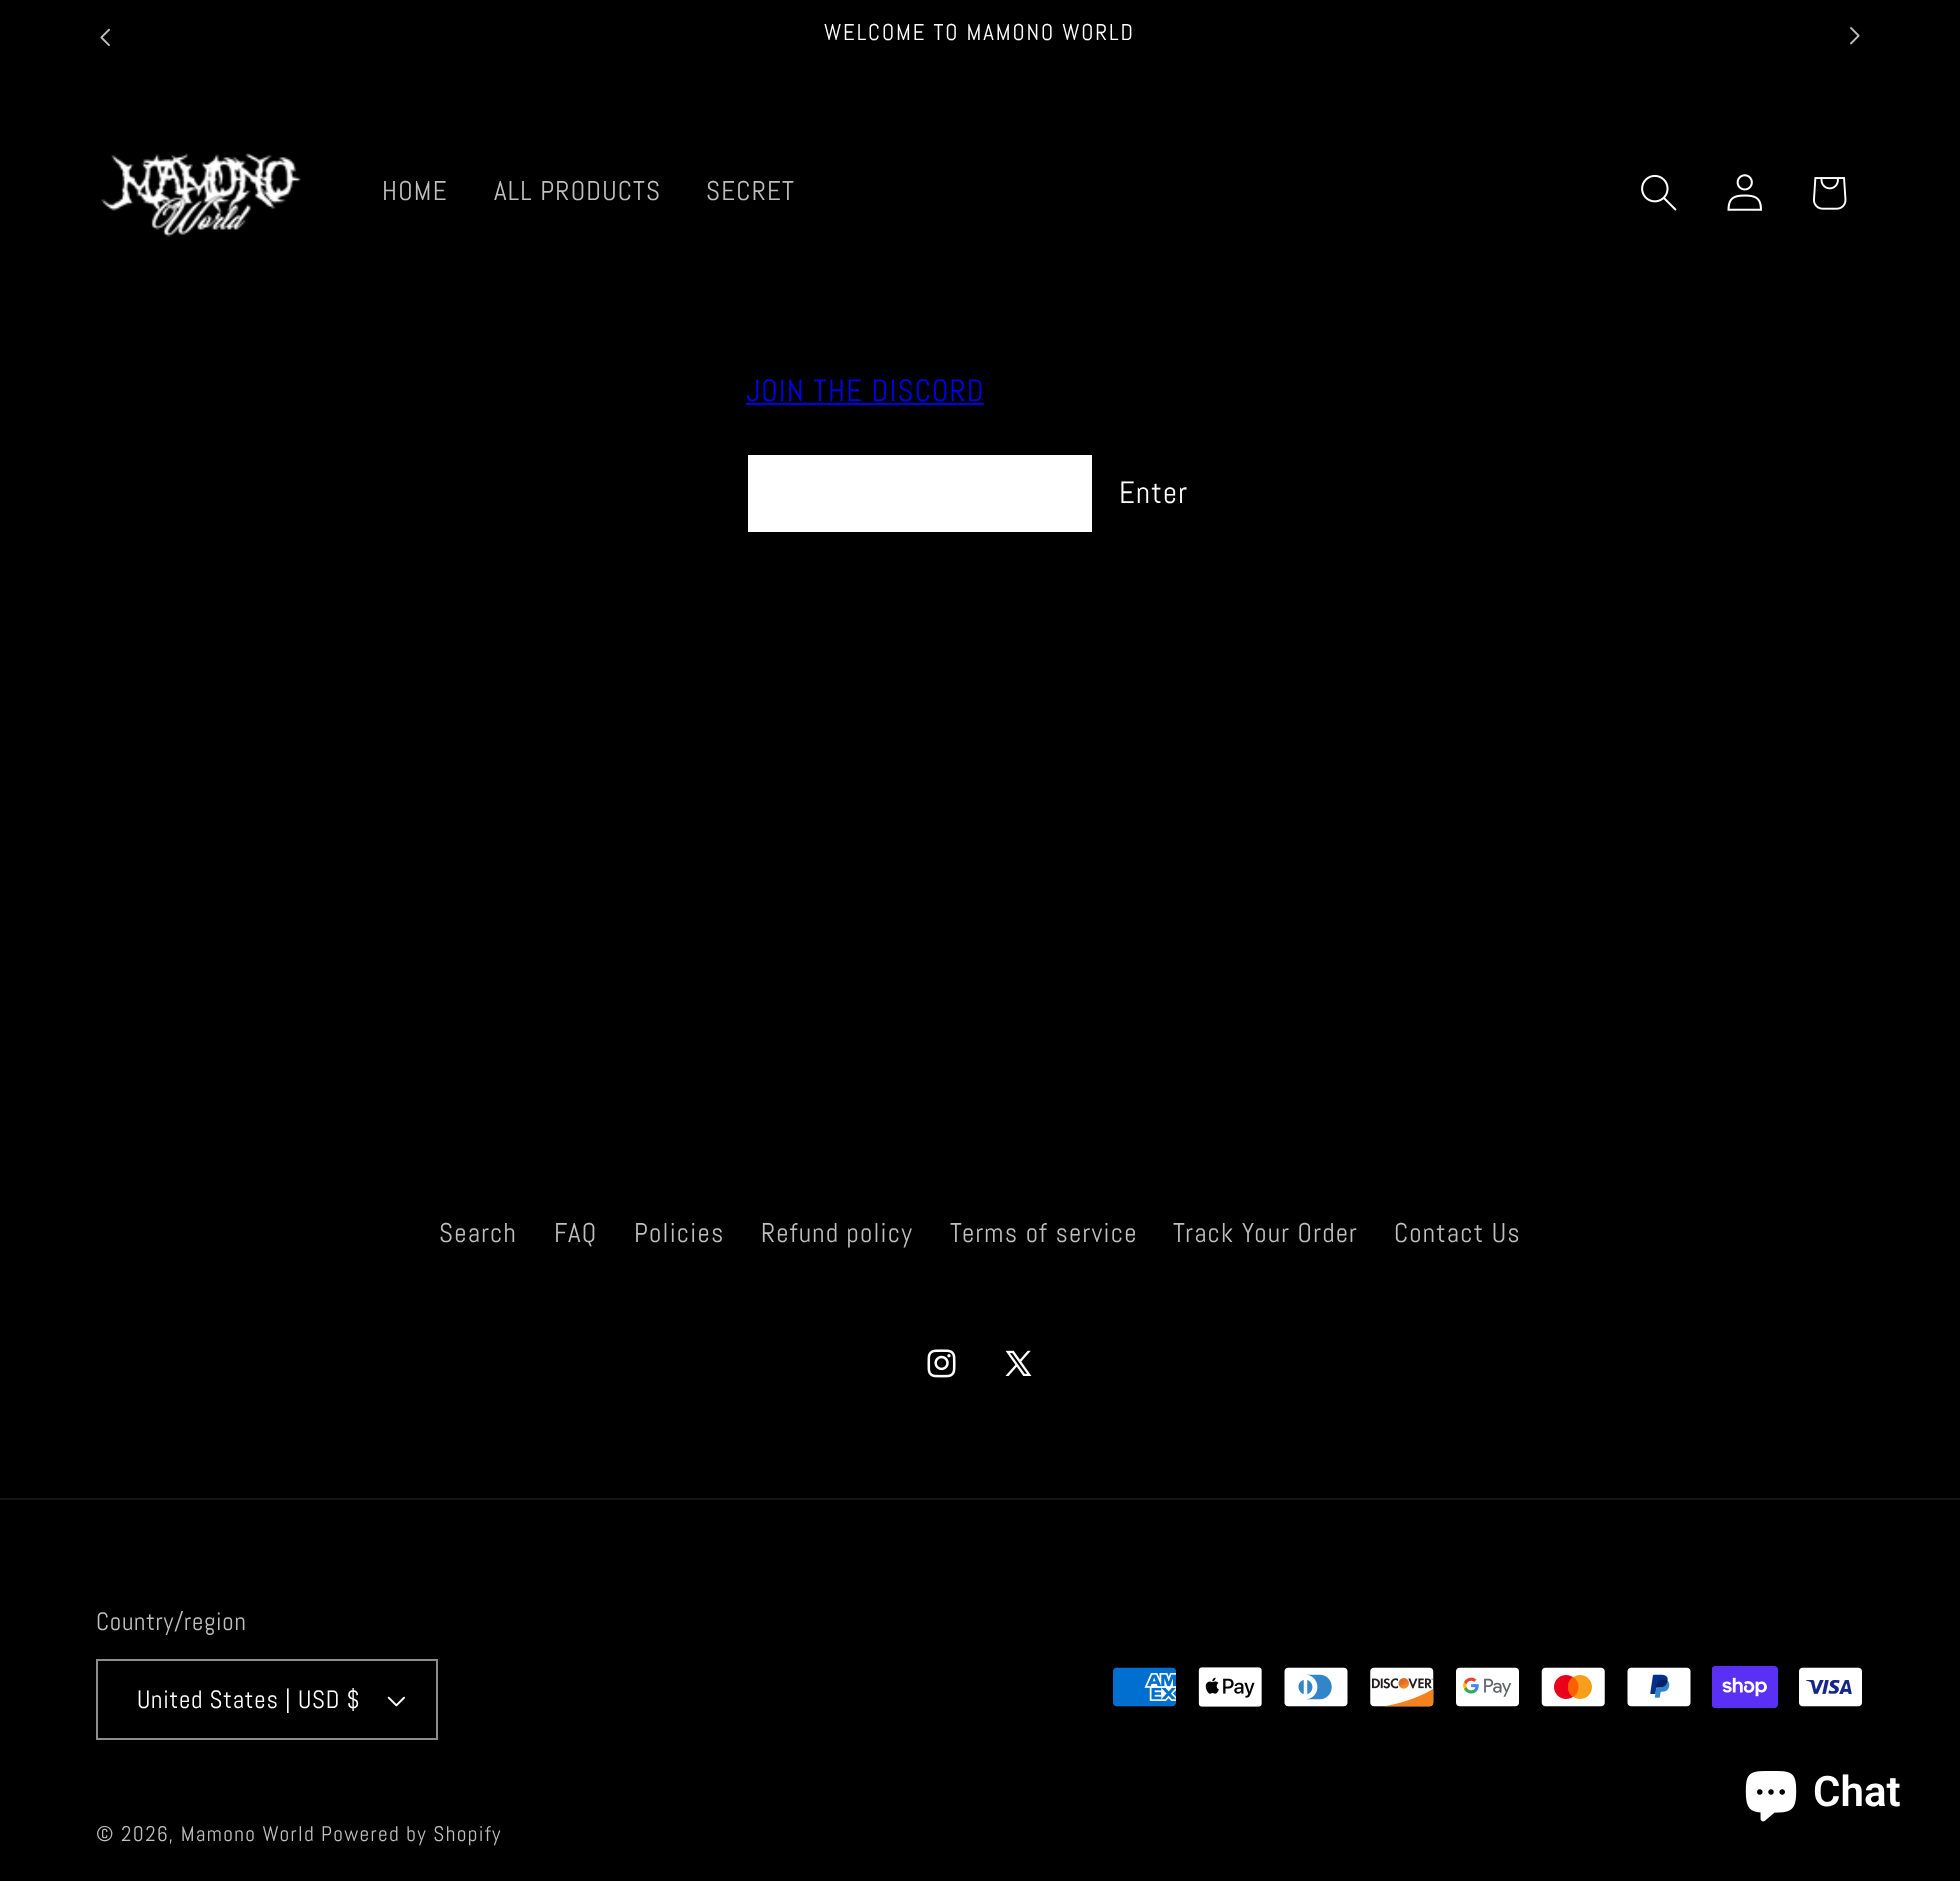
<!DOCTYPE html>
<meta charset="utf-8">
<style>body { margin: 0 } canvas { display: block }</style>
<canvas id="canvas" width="1960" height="1881"></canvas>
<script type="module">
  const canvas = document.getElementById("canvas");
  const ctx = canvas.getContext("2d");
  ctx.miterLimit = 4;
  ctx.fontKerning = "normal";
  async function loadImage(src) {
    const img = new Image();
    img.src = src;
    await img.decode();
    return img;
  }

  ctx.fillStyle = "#000000";
  ctx.fillRect(0, 0, 1960, 1881);
  ctx.drawImage(await loadImage("img1.png"), 100, 28, 10, 18);
  ctx.letterSpacing = "1.9px";
  ctx.font = "22.75px Abel";
  ctx.fillStyle = "#ffffff";
  ctx.fillText("WELCOME TO MAMONO WORLD", 824, 40);
  ctx.drawImage(await loadImage("img2.png"), 1850, 27, 10, 18);
  ctx.drawImage(await loadImage("img3.png"), 101, 153, 201, 84);
  ctx.letterSpacing = "1.2px";
  ctx.font = "27px Abel";
  ctx.fillStyle = "#bfbfbf";
  ctx.fillText("HOME", 382, 200);
  ctx.fillText("ALL PRODUCTS", 494, 200);
  ctx.fillText("SECRET", 706, 200);
  ctx.drawImage(await loadImage("img4.png"), 1641, 174, 36, 37);
  ctx.drawImage(await loadImage("img5.png"), 1727, 174, 35, 37);
  ctx.drawImage(await loadImage("img6.png"), 1813, 177, 34, 33);
  ctx.font = "30.75px Abel";
  ctx.fillStyle = "#0000ee";
  ctx.fillText("JOIN THE DISCORD", 746, 401);
  ctx.fillRect(746, 403, 238, 2);
  ctx.fillStyle = "#ffffff";
  ctx.fillRect(748, 455, 344, 77);
  ctx.fillText("Enter", 1119, 503);
  ctx.font = "27px Abel";
  ctx.fillStyle = "#bfbfbf";
  ctx.fillText("Search", 439, 1242);
  ctx.fillText("FAQ", 554, 1242);
  ctx.fillText("Policies", 634, 1242);
  ctx.fillText("Refund policy", 761, 1242);
  ctx.fillText("Terms of service", 950, 1242);
  ctx.fillText("Track Your Order", 1173, 1242);
  ctx.fillText("Contact Us", 1394, 1242);
  ctx.drawImage(await loadImage("img7.png"), 927, 1349, 29, 29);
  ctx.drawImage(await loadImage("img8.png"), 1005, 1350, 27, 26);
  ctx.fillStyle = "#141414";
  ctx.fillRect(0, 1498, 1960, 2);
  ctx.letterSpacing = "0.75px";
  ctx.font = "25px Abel";
  ctx.fillStyle = "#bfbfbf";
  ctx.fillText("Country/region", 96, 1630);
  ctx.drawImage(await loadImage("img9.png"), 387, 1696, 18, 11);
  ctx.strokeStyle = "#8c8c8c";
  ctx.lineWidth = 2;
  ctx.strokeRect(97, 1660, 340, 79);
  ctx.fillStyle = "#ffffff";
  ctx.fillText("United States | USD $", 137, 1708);
  ctx.drawImage(await loadImage("img10.png"), 1113, 1667, 63, 40);
  ctx.drawImage(await loadImage("img11.png"), 1198, 1667, 64, 40);
  ctx.drawImage(await loadImage("img12.png"), 1284, 1667, 64, 40);
  ctx.drawImage(await loadImage("img13.png"), 1370, 1667, 64, 40);
  ctx.drawImage(await loadImage("img14.png"), 1456, 1667, 63, 40);
  ctx.drawImage(await loadImage("img15.png"), 1541, 1667, 64, 40);
  ctx.drawImage(await loadImage("img16.png"), 1627, 1667, 64, 40);
  ctx.drawImage(await loadImage("img17.png"), 1712, 1666, 66, 42);
  ctx.drawImage(await loadImage("img18.png"), 1799, 1667, 63, 40);
  ctx.letterSpacing = "1.35px";
  ctx.font = "21.25px Abel";
  ctx.fillStyle = "#bfbfbf";
  ctx.fillText("© 2026, Mamono World", 96, 1841);
  ctx.fillText("Powered by Shopify", 321, 1841);
  ctx.drawImage(await loadImage("img19.png"), 1745, 1771, 52, 51);
  ctx.letterSpacing = "0px";
  ctx.font = "600 42px Roboto";
  ctx.fillStyle = "#ffffff";
  ctx.fillText("Chat", 1813, 1806);
</script>
